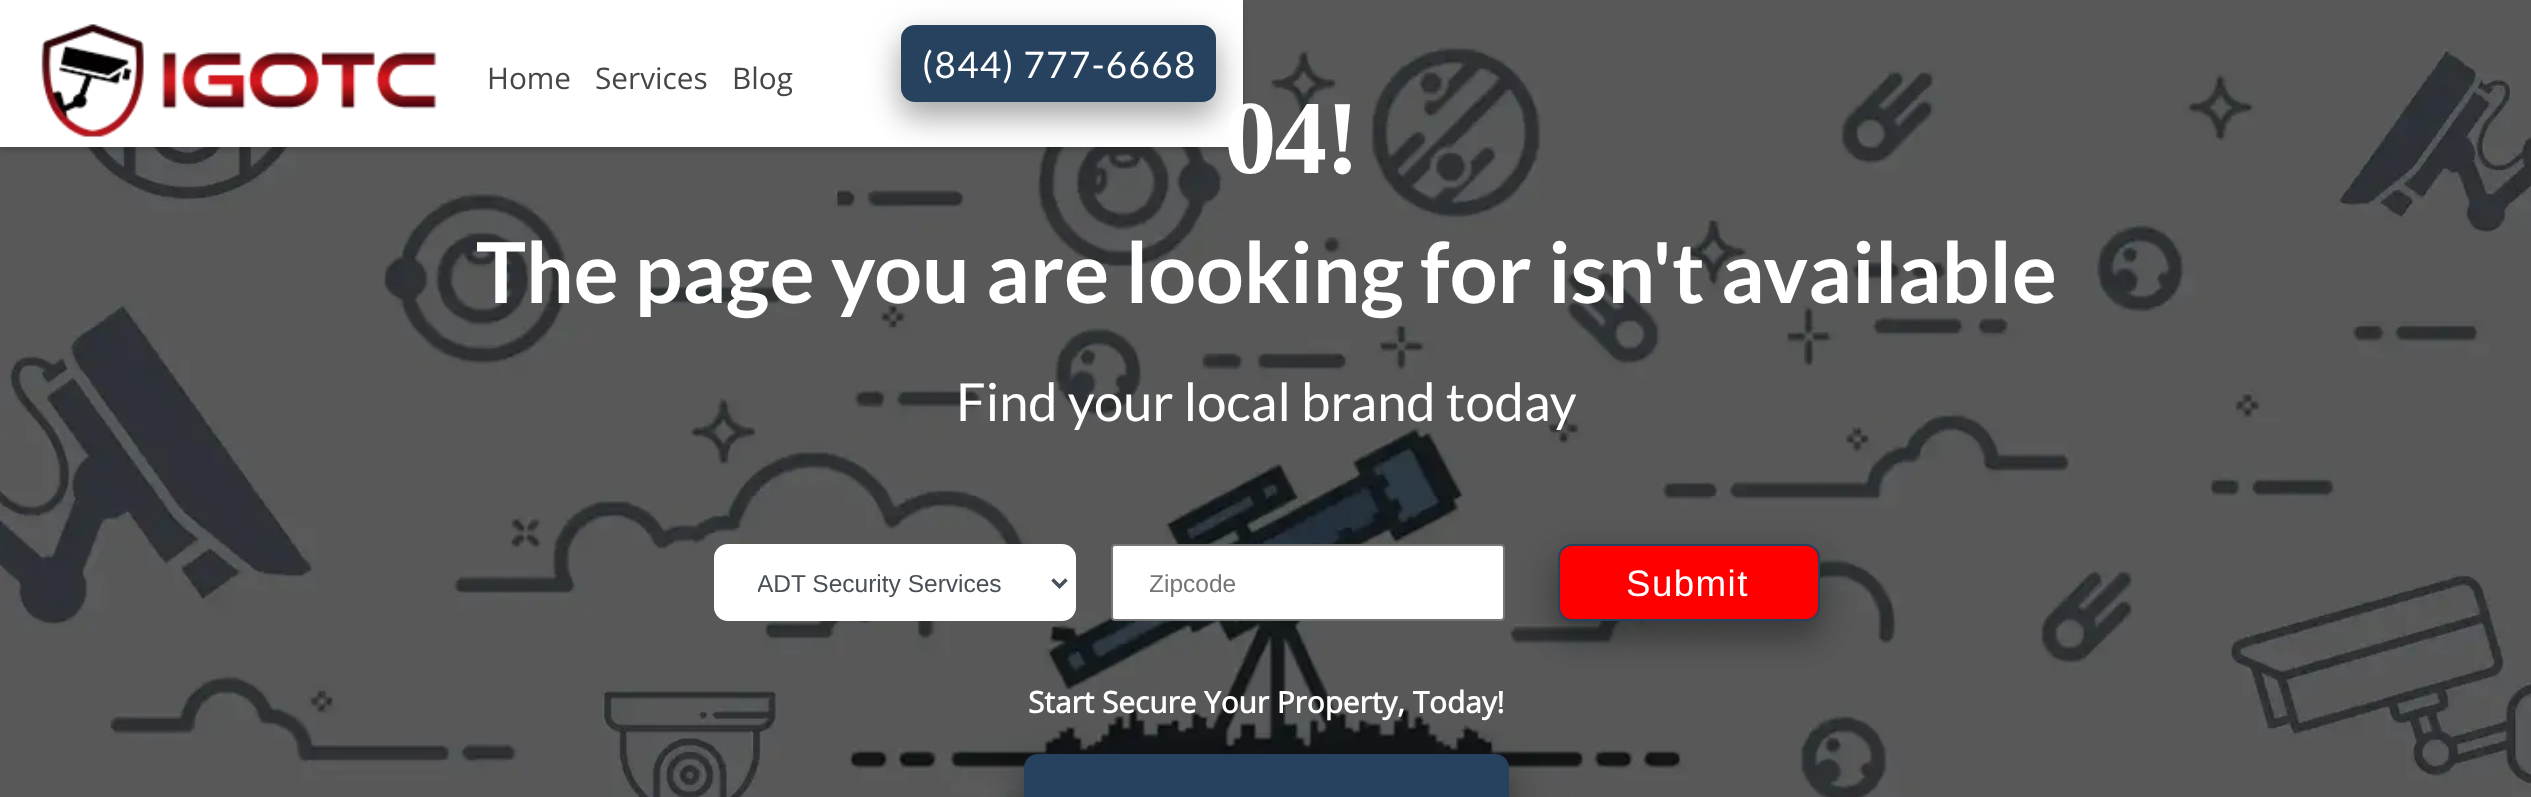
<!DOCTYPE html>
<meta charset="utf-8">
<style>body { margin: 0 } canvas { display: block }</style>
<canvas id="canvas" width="2531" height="797"></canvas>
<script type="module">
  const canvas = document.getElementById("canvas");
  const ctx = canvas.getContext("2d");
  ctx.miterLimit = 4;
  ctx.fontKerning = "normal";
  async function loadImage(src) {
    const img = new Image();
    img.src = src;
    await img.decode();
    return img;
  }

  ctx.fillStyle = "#ffffff";
  ctx.fillRect(0, 0, 2531, 797);
  ctx.drawImage(await loadImage("img2.png"), 0, 0, 2531, 797);
  ctx.fillStyle = "rgba(0, 0, 0, 0.15)";
  ctx.filter = "blur(2.5px)";
  ctx.beginPath();
  ctx.rect(0, 4, 1243, 147);
  ctx.fill();
  ctx.filter = "none";
  ctx.fillStyle = "#ffffff";
  ctx.fillRect(0, 0, 1243, 147);
  ctx.drawImage(await loadImage("img1.png"), 41, 24, 396, 113);
  ctx.font = "29.75px Open Sans";
  ctx.fillStyle = "#464646";
  ctx.fillText("Home", 487, 89);
  ctx.fillText("Services", 595, 89);
  ctx.fillText("Blog", 732, 89);
  ctx.fillStyle = "rgba(0, 0, 0, 0.19)";
  ctx.filter = "blur(17.5px)";
  ctx.beginPath();
  ctx.roundRect(901, 35, 315, 77, 14);
  ctx.fill();
  ctx.filter = "none";
  ctx.fillStyle = "rgba(0, 0, 0, 0.2)";
  ctx.filter = "blur(14px)";
  ctx.beginPath();
  ctx.roundRect(901, 42, 315, 77, 14);
  ctx.fill();
  ctx.filter = "none";
  ctx.fillStyle = "#27425f";
  ctx.beginPath();
  ctx.roundRect(902, 26, 313, 75, 13);
  ctx.fill();
  ctx.strokeStyle = "#27425f";
  ctx.lineWidth = 2;
  ctx.stroke();
  ctx.letterSpacing = "1.4px";
  ctx.font = "36.75px Lato";
  ctx.fillStyle = "#ffffff";
  ctx.fillText("(844) 777-6668", 922, 78);
  ctx.letterSpacing = "-2px";
  ctx.font = "bold 105px Liberation Serif";
  ctx.fillText("04!", 1224, 173);
  ctx.letterSpacing = "0px";
  ctx.font = "bold 84px Lato";
  ctx.fillText("The page you are looking for isn't available", 476, 303);
  ctx.font = "52.5px Lato";
  ctx.fillText("Find your local brand today", 956, 421);
  ctx.beginPath();
  ctx.roundRect(715, 545, 360, 75, 13);
  ctx.fill();
  ctx.strokeStyle = "#ffffff";
  ctx.stroke();
  ctx.beginPath();
  ctx.moveTo(1052.5, 579.5);
  ctx.lineTo(1059.5, 586.5);
  ctx.lineTo(1066.5, 579.5);
  ctx.strokeStyle = "#495057";
  ctx.lineWidth = 3.5;
  ctx.stroke();
  ctx.save();
  ctx.beginPath();
  ctx.rect(758, 567, 254, 32);
  ctx.clip();
  ctx.font = "24.5px Liberation Sans";
  ctx.fillStyle = "#495057";
  ctx.fillText("ADT Security Services", 757, 592);
  ctx.restore();
  ctx.beginPath();
  ctx.roundRect(1112, 545, 392, 75, 3);
  ctx.fill();
  ctx.strokeStyle = "#767676";
  ctx.lineWidth = 2;
  ctx.stroke();
  ctx.save();
  ctx.beginPath();
  ctx.rect(1150, 569, 290, 28);
  ctx.clip();
  ctx.font = "24.5px Liberation Sans";
  ctx.fillStyle = "#757575";
  ctx.fillText("Zipcode", 1149, 592);
  ctx.restore();
  ctx.fillStyle = "rgba(0, 0, 0, 0.19)";
  ctx.filter = "blur(17.5px)";
  ctx.beginPath();
  ctx.roundRect(1558, 555, 262, 77, 14);
  ctx.fill();
  ctx.filter = "none";
  ctx.fillStyle = "rgba(0, 0, 0, 0.2)";
  ctx.filter = "blur(14px)";
  ctx.beginPath();
  ctx.roundRect(1558, 562, 262, 77, 14);
  ctx.fill();
  ctx.filter = "none";
  ctx.fillStyle = "#ff0000";
  ctx.beginPath();
  ctx.roundRect(1559, 545, 260, 75, 13);
  ctx.fill();
  ctx.strokeStyle = "#27425f";
  ctx.stroke();
  ctx.letterSpacing = "1.4px";
  ctx.font = "36.75px Liberation Sans";
  ctx.fillStyle = "#ffffff";
  ctx.fillText("Submit", 1626, 596);
  ctx.letterSpacing = "0px";
  ctx.font = "bold 29.75px Open Sans";
  ctx.fillText("Start Secure Your Property, Today!", 1028, 713);
  ctx.fillStyle = "rgba(0, 0, 0, 0.19)";
  ctx.filter = "blur(17.5px)";
  ctx.beginPath();
  ctx.roundRect(1024, 765, 485, 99, 14);
  ctx.fill();
  ctx.filter = "none";
  ctx.fillStyle = "rgba(0, 0, 0, 0.2)";
  ctx.filter = "blur(14px)";
  ctx.beginPath();
  ctx.roundRect(1024, 772, 485, 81, 14);
  ctx.fill();
  ctx.filter = "none";
  ctx.fillStyle = "#27425f";
  ctx.beginPath();
  ctx.roundRect(1024, 754, 485, 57, 14);
  ctx.fill();
</script>
